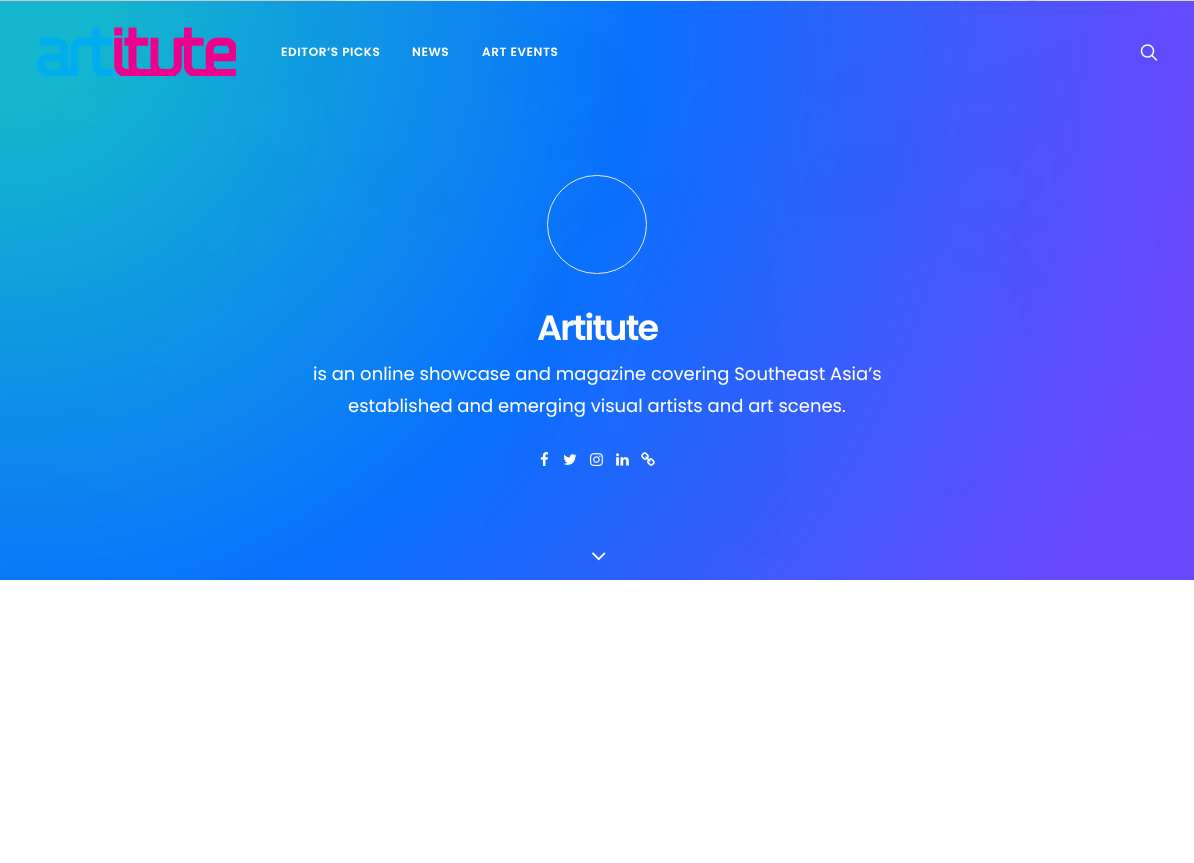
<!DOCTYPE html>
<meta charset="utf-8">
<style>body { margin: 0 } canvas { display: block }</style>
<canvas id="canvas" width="1194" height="863"></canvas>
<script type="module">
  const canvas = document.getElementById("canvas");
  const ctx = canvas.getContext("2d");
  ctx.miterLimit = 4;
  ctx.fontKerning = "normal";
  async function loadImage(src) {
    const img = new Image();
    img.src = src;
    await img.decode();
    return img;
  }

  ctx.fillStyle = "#ffffff";
  ctx.fillRect(0, 0, 1194, 863);
  ctx.drawImage(await loadImage("img4.png"), 0, 1, 1194, 579);
  ctx.drawImage(await loadImage("img1.png"), 36, 27, 200, 49);
  ctx.letterSpacing = "0.6px";
  ctx.font = "600 12px Poppins";
  ctx.fillText("EDITOR’S PICKS", 281, 56);
  ctx.fillText("NEWS", 412, 56);
  ctx.fillText("ART EVENTS", 482, 56);
  ctx.drawImage(await loadImage("img2.png"), 1140, 44, 18, 17);
  ctx.drawImage(await loadImage("img3.png"), 0, 0, 1194, 1);
  ctx.beginPath();
  ctx.roundRect(547.5, 175.5, 99, 98, 49);
  ctx.strokeStyle = "#eaeaea";
  ctx.stroke();
  ctx.letterSpacing = "-1.75px";
  ctx.font = "600 35px Poppins";
  ctx.fillText("Artitute", 537, 340);
  ctx.letterSpacing = "0px";
  ctx.font = "18px Poppins";
  ctx.fillText("is an online showcase and magazine covering Southeast Asia’s", 313, 380);
  ctx.fillText("established and emerging visual artists and art scenes.", 348, 412);
  ctx.drawImage(await loadImage("img5.png"), 540, 452, 9, 14);
  ctx.drawImage(await loadImage("img6.png"), 563, 454, 14, 11);
  ctx.drawImage(await loadImage("img7.png"), 590, 453, 13, 13);
  ctx.drawImage(await loadImage("img8.png"), 616, 453, 13, 13);
  ctx.drawImage(await loadImage("img9.png"), 641, 452, 14, 14);
  ctx.drawImage(await loadImage("img10.png"), 592, 552, 14, 9);
</script>
